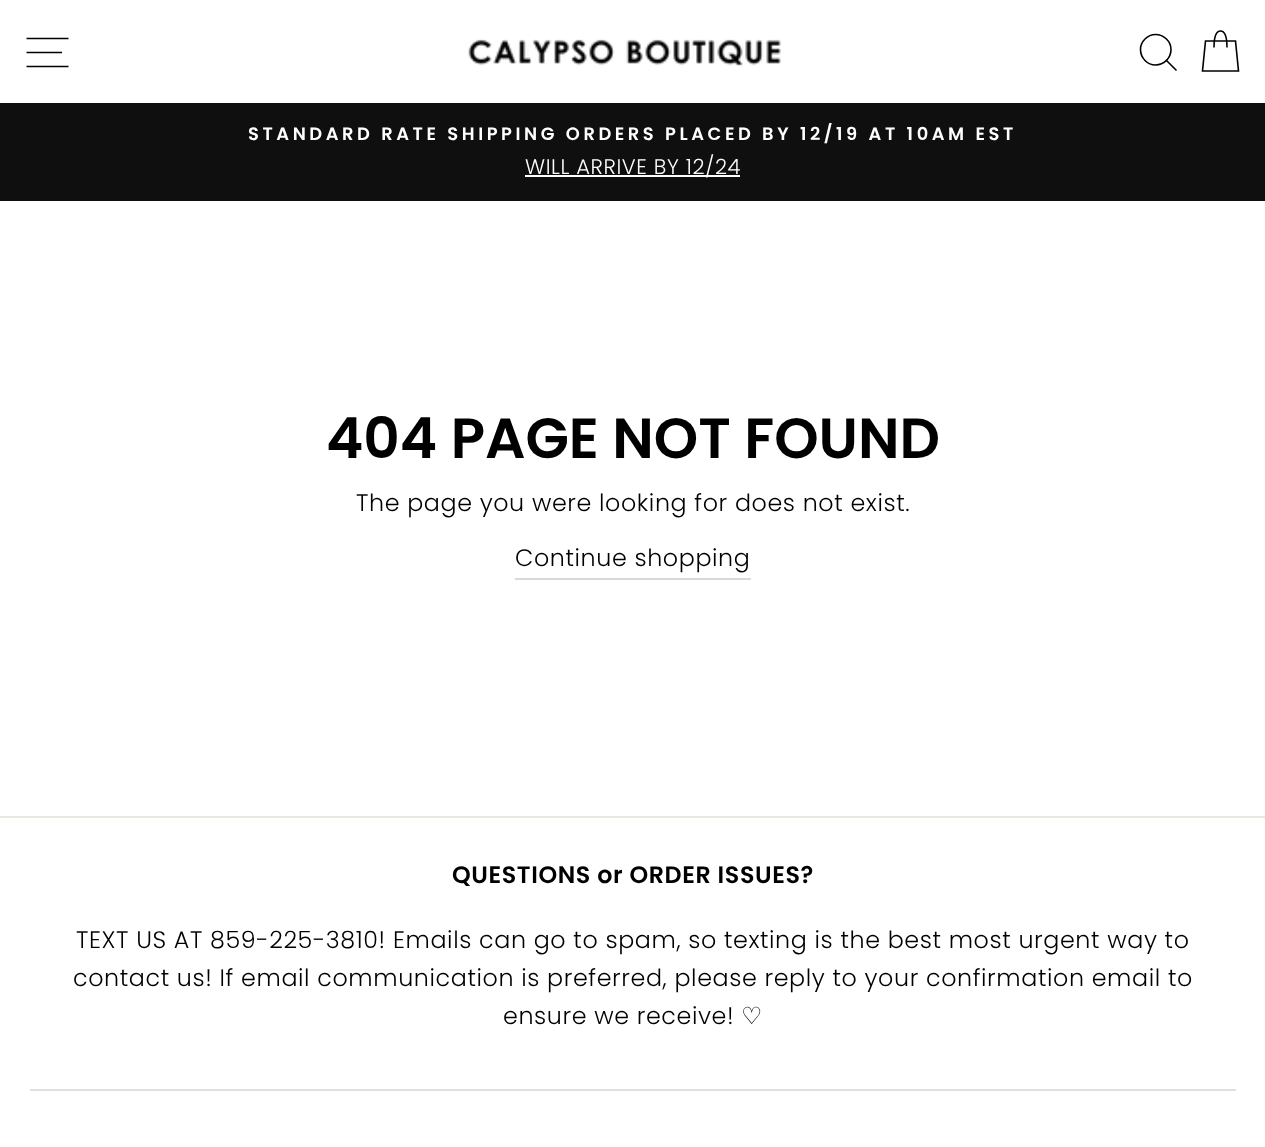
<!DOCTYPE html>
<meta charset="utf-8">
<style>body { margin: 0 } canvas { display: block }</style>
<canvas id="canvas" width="1265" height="1147"></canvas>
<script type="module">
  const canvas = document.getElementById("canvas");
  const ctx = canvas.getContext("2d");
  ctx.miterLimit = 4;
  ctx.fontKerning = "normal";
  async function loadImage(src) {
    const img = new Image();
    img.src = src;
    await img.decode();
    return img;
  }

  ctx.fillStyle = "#ffffff";
  ctx.fillRect(0, 0, 1265, 1147);
  ctx.beginPath();
  ctx.moveTo(26.5, 38.5);
  ctx.lineTo(68.5, 38.5);
  ctx.moveTo(26.5, 52.5);
  ctx.lineTo(62, 52.5);
  ctx.moveTo(26.5, 66.5);
  ctx.lineTo(68.5, 66.5);
  ctx.strokeStyle = "#000000";
  ctx.lineWidth = 1.6;
  ctx.stroke();
  ctx.drawImage(await loadImage("img1.png"), 468, 39, 313, 27);
  ctx.beginPath();
  ctx.moveTo(1171, 49.5);
  ctx.bezierCurveTo(1171, 58, 1164, 65, 1155.5, 65);
  ctx.bezierCurveTo(1147.5, 65, 1140.5, 58, 1140.5, 49.5);
  ctx.bezierCurveTo(1140.5, 41.5, 1147.5, 34.5, 1155.5, 34.5);
  ctx.bezierCurveTo(1164, 34.5, 1171, 41.5, 1171, 49.5);
  ctx.closePath();
  ctx.moveTo(1176.5, 70.5);
  ctx.lineTo(1166.5, 60.5);
  ctx.stroke();
  ctx.beginPath();
  ctx.moveTo(1214, 47.5);
  ctx.bezierCurveTo(1214, 34.5, 1217, 31, 1220.5, 31);
  ctx.bezierCurveTo(1224, 31, 1227, 34.5, 1227, 47.5);
  ctx.moveTo(1205.5, 41);
  ctx.lineTo(1235.5, 41);
  ctx.lineTo(1238.5, 71);
  ctx.lineTo(1202.5, 71);
  ctx.closePath();
  ctx.stroke();
  ctx.fillStyle = "#0f0f0f";
  ctx.fillRect(0, 103, 1265, 98);
  ctx.letterSpacing = "3.57px";
  ctx.font = "600 17.85px Poppins";
  ctx.fillStyle = "#ffffff";
  ctx.fillText("STANDARD RATE SHIPPING ORDERS PLACED BY 12/19 AT 10AM EST", 248, 140);
  ctx.fillRect(525, 175, 215, 2);
  ctx.letterSpacing = "0.6px";
  ctx.font = "300 21px Poppins";
  ctx.fillText("WILL ARRIVE BY 12/24", 525, 174);
  ctx.letterSpacing = "0px";
  ctx.font = "600 56.5px Poppins";
  ctx.fillStyle = "#000000";
  ctx.fillText("404 PAGE NOT FOUND", 326, 458);
  ctx.letterSpacing = "0.6px";
  ctx.font = "300 23.8px Poppins";
  ctx.fillText("The page you were looking for does not exist.", 356, 511);
  ctx.fillStyle = "#d9d9d9";
  ctx.fillRect(515, 578, 236, 2);
  ctx.fillStyle = "#000000";
  ctx.fillText("Continue shopping", 515, 566);
  ctx.fillStyle = "#e8e8e1";
  ctx.fillRect(0, 816, 1265, 2);
  ctx.font = "600 23.8px Poppins";
  ctx.fillStyle = "#000000";
  ctx.fillText("QUESTIONS or ORDER ISSUES?", 452, 883);
  ctx.font = "300 23.8px Poppins";
  ctx.fillText("TEXT US AT 859-225-3810! Emails can go to spam, so texting is the best most urgent way to", 76, 948);
  ctx.fillText("contact us! If email communication is preferred, please reply to your confirmation email to", 73, 986);
  ctx.fillText("ensure we receive!", 503, 1024);
  ctx.font = "23.8px DejaVu Sans";
  ctx.fillText("♡", 741, 1024);
  ctx.fillStyle = "#e0e0e0";
  ctx.fillRect(30, 1089, 1206, 2);
</script>
